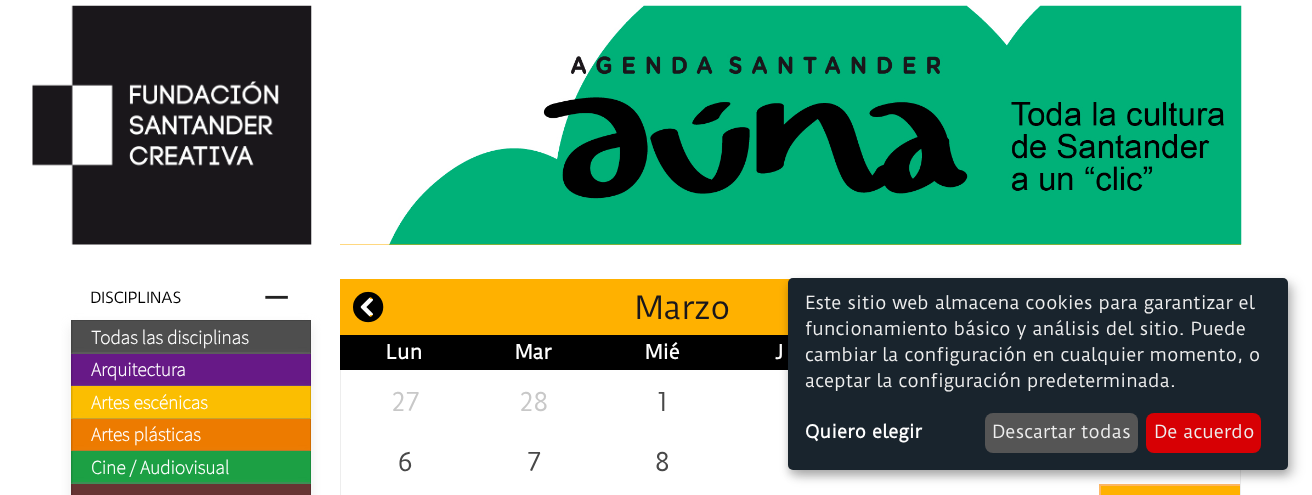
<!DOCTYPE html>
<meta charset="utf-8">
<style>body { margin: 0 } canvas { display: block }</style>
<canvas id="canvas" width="1312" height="495"></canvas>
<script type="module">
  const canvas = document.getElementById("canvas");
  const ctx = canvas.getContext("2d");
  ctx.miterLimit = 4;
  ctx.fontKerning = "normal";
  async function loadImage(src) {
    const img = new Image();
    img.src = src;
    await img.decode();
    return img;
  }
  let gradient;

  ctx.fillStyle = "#ffffff";
  ctx.fillRect(0, 0, 1312, 495);
  ctx.drawImage(await loadImage("img1.png"), 32, 5, 280, 240);
  ctx.fillStyle = "#ffb100";
  ctx.fillRect(340, 244, 901, 1);
  ctx.drawImage(await loadImage("img2.png"), 340, 5, 902, 240);
  ctx.font = "15px Duru Sans";
  ctx.fillStyle = "#000000";
  ctx.fillText("DISCIPLINAS", 90, 303);
  ctx.font = "50px Duru Sans";
  ctx.fillStyle = "#222222";
  ctx.fillText("−", 262, 316);
  ctx.fillStyle = "rgba(193, 193, 193, 0.35)";
  ctx.filter = "blur(6px)";
  ctx.beginPath();
  ctx.rect(71, 326, 240, 34);
  ctx.fill();
  ctx.filter = "none";
  ctx.fillStyle = "#4e4e4e";
  ctx.fillRect(71, 320, 240, 34);
  ctx.fillStyle = "#444444";
  ctx.beginPath();
  ctx.moveTo(71, 320);
  ctx.lineTo(311, 320);
  ctx.lineTo(310, 321);
  ctx.lineTo(72, 321);
  ctx.closePath();
  ctx.fill();
  ctx.fillStyle = "rgba(0, 0, 0, 0.12)";
  ctx.beginPath();
  ctx.moveTo(311, 320);
  ctx.lineTo(311, 354);
  ctx.lineTo(310, 352.5);
  ctx.lineTo(310, 321);
  ctx.closePath();
  ctx.fill();
  ctx.fillStyle = "rgba(108, 108, 108, 0.35)";
  ctx.beginPath();
  ctx.moveTo(311, 354);
  ctx.lineTo(71, 354);
  ctx.lineTo(72, 352);
  ctx.lineTo(310, 352);
  ctx.closePath();
  ctx.fill();
  ctx.fillStyle = "rgba(0, 0, 0, 0.12)";
  ctx.beginPath();
  ctx.moveTo(71, 354);
  ctx.lineTo(71, 320);
  ctx.lineTo(72.5, 321);
  ctx.lineTo(72.5, 352.5);
  ctx.closePath();
  ctx.fill();
  ctx.font = "bold 17.5px Noto Sans JP";
  ctx.fillStyle = "#ffffff";
  ctx.fillText("Todas las disciplinas", 91, 344);
  ctx.fillStyle = "rgba(193, 193, 193, 0.35)";
  ctx.filter = "blur(6px)";
  ctx.beginPath();
  ctx.rect(71, 360, 240, 33);
  ctx.fill();
  ctx.filter = "none";
  ctx.fillStyle = "#671987";
  ctx.fillRect(71, 354, 240, 32);
  ctx.fillStyle = "#5a1676";
  ctx.beginPath();
  ctx.moveTo(311, 354);
  ctx.lineTo(311, 386);
  ctx.lineTo(310, 385);
  ctx.lineTo(310, 354);
  ctx.closePath();
  ctx.fill();
  ctx.fillStyle = "rgba(108, 108, 108, 0.35)";
  ctx.beginPath();
  ctx.moveTo(311, 386);
  ctx.lineTo(71, 386);
  ctx.lineTo(72, 385);
  ctx.lineTo(310, 385);
  ctx.closePath();
  ctx.fill();
  ctx.fillStyle = "rgba(0, 0, 0, 0.12)";
  ctx.beginPath();
  ctx.moveTo(71, 386);
  ctx.lineTo(71, 354);
  ctx.lineTo(72.5, 354);
  ctx.lineTo(72.5, 385);
  ctx.closePath();
  ctx.fill();
  ctx.fillStyle = "#ffffff";
  ctx.fillText("Arquitectura", 91, 376);
  ctx.fillStyle = "rgba(193, 193, 193, 0.35)";
  ctx.filter = "blur(6px)";
  ctx.beginPath();
  ctx.rect(71, 393, 240, 32);
  ctx.fill();
  ctx.filter = "none";
  ctx.fillStyle = "#fbbe01";
  ctx.fillRect(71, 386, 240, 33);
  ctx.fillStyle = "#dca601";
  ctx.beginPath();
  ctx.moveTo(311, 386);
  ctx.lineTo(311, 419);
  ctx.lineTo(310, 417.5);
  ctx.lineTo(310, 386);
  ctx.closePath();
  ctx.fill();
  ctx.fillStyle = "rgba(108, 108, 108, 0.35)";
  ctx.beginPath();
  ctx.moveTo(311, 419);
  ctx.lineTo(71, 419);
  ctx.lineTo(72, 418);
  ctx.lineTo(310, 418);
  ctx.closePath();
  ctx.fill();
  ctx.fillStyle = "rgba(0, 0, 0, 0.12)";
  ctx.beginPath();
  ctx.moveTo(71, 419);
  ctx.lineTo(71, 386);
  ctx.lineTo(72.5, 386);
  ctx.lineTo(72.5, 417.5);
  ctx.closePath();
  ctx.fill();
  ctx.fillStyle = "#ffffff";
  ctx.fillText("Artes escénicas", 91, 409);
  ctx.fillStyle = "rgba(193, 193, 193, 0.35)";
  ctx.filter = "blur(6px)";
  ctx.beginPath();
  ctx.rect(71, 425, 240, 33);
  ctx.fill();
  ctx.filter = "none";
  ctx.fillStyle = "#ed7b00";
  ctx.fillRect(71, 419, 240, 32);
  ctx.fillStyle = "#cf6c00";
  ctx.beginPath();
  ctx.moveTo(311, 419);
  ctx.lineTo(311, 451);
  ctx.lineTo(310, 450);
  ctx.lineTo(310, 419);
  ctx.closePath();
  ctx.fill();
  ctx.fillStyle = "rgba(108, 108, 108, 0.35)";
  ctx.beginPath();
  ctx.moveTo(311, 451);
  ctx.lineTo(71, 451);
  ctx.lineTo(72, 450);
  ctx.lineTo(310, 450);
  ctx.closePath();
  ctx.fill();
  ctx.fillStyle = "rgba(0, 0, 0, 0.12)";
  ctx.beginPath();
  ctx.moveTo(71, 451);
  ctx.lineTo(71, 419);
  ctx.lineTo(72.5, 419);
  ctx.lineTo(72.5, 450);
  ctx.closePath();
  ctx.fill();
  ctx.fillStyle = "#ffffff";
  ctx.fillText("Artes plásticas", 91, 441);
  ctx.fillStyle = "rgba(193, 193, 193, 0.35)";
  ctx.filter = "blur(6px)";
  ctx.beginPath();
  ctx.rect(71, 458, 240, 32);
  ctx.fill();
  ctx.filter = "none";
  ctx.fillStyle = "#1ca044";
  ctx.fillRect(71, 451, 240, 33);
  ctx.fillStyle = "#198c3c";
  ctx.beginPath();
  ctx.moveTo(311, 451);
  ctx.lineTo(311, 484);
  ctx.lineTo(310, 482.5);
  ctx.lineTo(310, 451);
  ctx.closePath();
  ctx.fill();
  ctx.fillStyle = "rgba(108, 108, 108, 0.35)";
  ctx.beginPath();
  ctx.moveTo(311, 484);
  ctx.lineTo(71, 484);
  ctx.lineTo(72, 482);
  ctx.lineTo(310, 482);
  ctx.closePath();
  ctx.fill();
  ctx.fillStyle = "rgba(0, 0, 0, 0.12)";
  ctx.beginPath();
  ctx.moveTo(71, 484);
  ctx.lineTo(71, 451);
  ctx.lineTo(72.5, 451);
  ctx.lineTo(72.5, 482.5);
  ctx.closePath();
  ctx.fill();
  ctx.fillStyle = "#ffffff";
  ctx.fillText("Cine / Audiovisual", 91, 474);
  ctx.fillStyle = "rgba(193, 193, 193, 0.35)";
  ctx.filter = "blur(6px)";
  ctx.beginPath();
  ctx.rect(71, 490, 240, 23);
  ctx.fill();
  ctx.filter = "none";
  ctx.fillStyle = "#673433";
  ctx.fillRect(72, 484, 238, 11);
  ctx.fillStyle = "#5a2e2d";
  ctx.beginPath();
  ctx.moveTo(311, 484);
  ctx.lineTo(311, 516);
  ctx.lineTo(310, 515);
  ctx.lineTo(310, 484);
  ctx.closePath();
  ctx.fill();
  ctx.beginPath();
  ctx.moveTo(71, 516);
  ctx.lineTo(71, 484);
  ctx.lineTo(72.5, 484);
  ctx.lineTo(72.5, 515);
  ctx.closePath();
  ctx.fill();
  ctx.fillStyle = "#ffb100";
  ctx.fillRect(340, 279, 450, 56);
  gradient = ctx.createRadialGradient(368, 307, 0, 368, 307, 22);
  gradient.addColorStop(0.4, "#ffffff");
  gradient.addColorStop(0.4, "#ffb100");
  ctx.fillStyle = gradient;
  ctx.fillRect(359, 298, 18, 18);
  ctx.drawImage(await loadImage("img3.png"), 353, 291, 31, 32);
  ctx.font = "31px Duru Sans";
  ctx.fillStyle = "#19171c";
  ctx.fillText("Marzo", 635, 319);
  ctx.fillStyle = "#000000";
  ctx.fillRect(340, 335, 448, 35);
  ctx.font = "bold 19px Duru Sans";
  ctx.fillStyle = "#ffffff";
  ctx.fillText("Lun", 386, 359);
  ctx.fillText("Mar", 515, 359);
  ctx.fillText("Mié", 645, 359);
  ctx.fillText("J", 775, 359);
  ctx.fillStyle = "#ededed";
  ctx.fillRect(1240, 470, 1, 25);
  ctx.fillRect(340, 370, 1, 125);
  ctx.font = "25px Duru Sans";
  ctx.fillStyle = "#c8c8c8";
  ctx.fillText("27", 391, 411);
  ctx.fillText("28", 519, 411);
  ctx.fillStyle = "#484848";
  ctx.fillText("1", 656, 411);
  ctx.fillText("6", 398, 471);
  ctx.fillText("7", 527, 471);
  ctx.fillText("8", 655, 471);
  ctx.fillStyle = "#ffb100";
  ctx.fillRect(1101, 486, 139, 9);
  ctx.save();
  ctx.beginPath();
  ctx.rect(341, 370, 899, 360);
  ctx.clip();
  ctx.strokeStyle = "#ffb866";
  ctx.lineWidth = 2;
  ctx.strokeRect(1100, 485, 152, 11);
  ctx.restore();
  ctx.fillStyle = "rgba(0, 0, 0, 0.19)";
  ctx.filter = "blur(6px)";
  ctx.beginPath();
  ctx.roundRect(794, 284, 500, 192, 5);
  ctx.fill();
  ctx.filter = "none";
  ctx.fillStyle = "rgba(0, 0, 0, 0.2)";
  ctx.filter = "blur(4px)";
  ctx.beginPath();
  ctx.roundRect(788, 283, 500, 192, 5);
  ctx.fill();
  ctx.filter = "none";
  ctx.fillStyle = "#19242d";
  ctx.beginPath();
  ctx.roundRect(788, 278, 500, 192, 5);
  ctx.fill();
  ctx.font = "17.5px Duru Sans";
  ctx.fillStyle = "#eeeeee";
  ctx.fillText("Este sitio web almacena cookies para garantizar el", 805, 309);
  ctx.fillText("funcionamiento básico y análisis del sitio. Puede", 805, 335);
  ctx.fillText("cambiar la configuración en cualquier momento, o", 805, 361);
  ctx.fillText("aceptar la configuración predeterminada.", 805, 387);
  ctx.font = "bold 17.5px Duru Sans";
  ctx.fillStyle = "#ffffff";
  ctx.fillText("Quiero elegir", 805, 438);
  ctx.fillStyle = "#555555";
  ctx.beginPath();
  ctx.roundRect(985, 413, 153, 40, 8);
  ctx.fill();
  ctx.font = "17.5px Duru Sans";
  ctx.fillStyle = "#eeeeee";
  ctx.fillText("Descartar todas", 992, 438);
  ctx.fillStyle = "#d70004";
  ctx.beginPath();
  ctx.roundRect(1146, 413, 115, 40, 8);
  ctx.fill();
  ctx.fillStyle = "#eeeeee";
  ctx.fillText("De acuerdo", 1154, 438);
</script>
